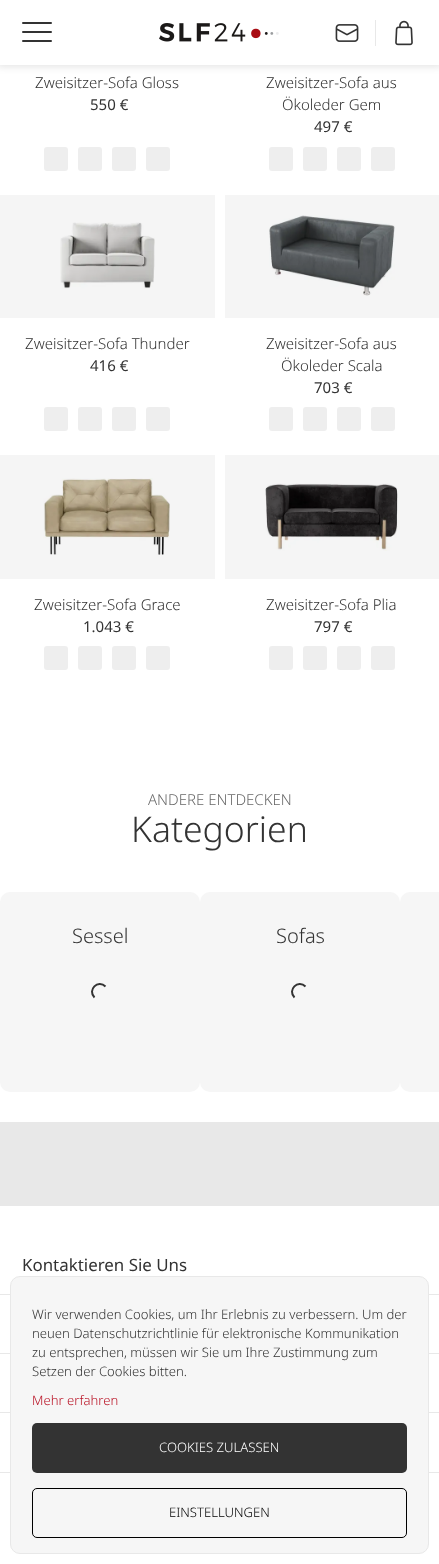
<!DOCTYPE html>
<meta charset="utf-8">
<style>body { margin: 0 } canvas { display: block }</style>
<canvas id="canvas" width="439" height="1564"></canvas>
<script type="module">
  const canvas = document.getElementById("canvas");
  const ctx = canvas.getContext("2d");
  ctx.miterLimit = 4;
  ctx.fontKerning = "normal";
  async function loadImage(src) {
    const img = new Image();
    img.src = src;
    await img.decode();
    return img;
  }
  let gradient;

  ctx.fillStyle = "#ffffff";
  ctx.fillRect(0, 0, 439, 1564);
  ctx.fillStyle = "#f5f5f5";
  ctx.fillRect(225, 455, 214, 124);
  ctx.fillRect(0, 455, 215, 124);
  ctx.fillRect(225, 195, 214, 123);
  ctx.fillRect(0, 195, 215, 123);
  ctx.fillStyle = "rgba(0, 0, 0, 0.1)";
  ctx.filter = "blur(3.5px)";
  ctx.beginPath();
  ctx.rect(-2, -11, 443, 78);
  ctx.fill();
  ctx.filter = "none";
  ctx.fillStyle = "#ffffff";
  ctx.fillRect(0, 0, 439, 65);
  ctx.fillStyle = "#333333";
  ctx.beginPath();
  ctx.roundRect(22, 22, 30, 2, 1);
  ctx.fill();
  ctx.beginPath();
  ctx.roundRect(22, 31, 30, 2, 1);
  ctx.fill();
  ctx.beginPath();
  ctx.roundRect(22, 40, 30, 2, 1);
  ctx.fill();
  ctx.drawImage(await loadImage("img1.png"), 159, 23, 120, 19);
  ctx.fillStyle = "#e8e8e8";
  ctx.fillRect(375, 20, 1, 26);
  ctx.drawImage(await loadImage("img2.png"), 335, 24, 24, 18);
  ctx.drawImage(await loadImage("img3.png"), 395, 20, 18, 26);
  ctx.font = "300 15px Noto Sans";
  ctx.fillStyle = "#333333";
  ctx.fillText("Zweisitzer-Sofa Gloss", 35, 88);
  ctx.font = "15px Noto Sans";
  ctx.fillText("550 €", 90, 110);
  gradient = ctx.createLinearGradient(-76, 267, 164, 267);
  gradient.addColorStop(0.1, "#eeeeee");
  gradient.addColorStop(0.18, "#dddddd");
  gradient.addColorStop(0.33, "#eeeeee");
  ctx.fillStyle = gradient;
  ctx.beginPath();
  ctx.roundRect(44, 147, 24, 24, 3);
  ctx.fill();
  gradient = ctx.createLinearGradient(-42, 267, 198, 267);
  gradient.addColorStop(0.1, "#eeeeee");
  gradient.addColorStop(0.18, "#dddddd");
  gradient.addColorStop(0.33, "#eeeeee");
  ctx.fillStyle = gradient;
  ctx.beginPath();
  ctx.roundRect(78, 147, 24, 24, 3);
  ctx.fill();
  gradient = ctx.createLinearGradient(-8, 267, 232, 267);
  gradient.addColorStop(0.1, "#eeeeee");
  gradient.addColorStop(0.18, "#dddddd");
  gradient.addColorStop(0.33, "#eeeeee");
  ctx.fillStyle = gradient;
  ctx.beginPath();
  ctx.roundRect(112, 147, 24, 24, 3);
  ctx.fill();
  gradient = ctx.createLinearGradient(26, 267, 266, 267);
  gradient.addColorStop(0.1, "#eeeeee");
  gradient.addColorStop(0.18, "#dddddd");
  gradient.addColorStop(0.33, "#eeeeee");
  ctx.fillStyle = gradient;
  ctx.beginPath();
  ctx.roundRect(146, 147, 24, 24, 3);
  ctx.fill();
  ctx.font = "300 15px Noto Sans";
  ctx.fillStyle = "#333333";
  ctx.fillText("Zweisitzer-Sofa aus", 266, 88);
  ctx.fillText("Ökoleder Gem", 282, 110);
  ctx.font = "15px Noto Sans";
  ctx.fillText("497 €", 314, 132);
  gradient = ctx.createLinearGradient(149, 267, 389, 267);
  gradient.addColorStop(0.1, "#eeeeee");
  gradient.addColorStop(0.18, "#dddddd");
  gradient.addColorStop(0.33, "#eeeeee");
  ctx.fillStyle = gradient;
  ctx.beginPath();
  ctx.roundRect(269, 147, 24, 24, 3);
  ctx.fill();
  gradient = ctx.createLinearGradient(183, 267, 423, 267);
  gradient.addColorStop(0.1, "#eeeeee");
  gradient.addColorStop(0.18, "#dddddd");
  gradient.addColorStop(0.33, "#eeeeee");
  ctx.fillStyle = gradient;
  ctx.beginPath();
  ctx.roundRect(303, 147, 24, 24, 3);
  ctx.fill();
  gradient = ctx.createLinearGradient(217, 267, 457, 267);
  gradient.addColorStop(0.1, "#eeeeee");
  gradient.addColorStop(0.18, "#dddddd");
  gradient.addColorStop(0.33, "#eeeeee");
  ctx.fillStyle = gradient;
  ctx.beginPath();
  ctx.roundRect(337, 147, 24, 24, 3);
  ctx.fill();
  gradient = ctx.createLinearGradient(251, 267, 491, 267);
  gradient.addColorStop(0.1, "#eeeeee");
  gradient.addColorStop(0.18, "#dddddd");
  gradient.addColorStop(0.33, "#eeeeee");
  ctx.fillStyle = gradient;
  ctx.beginPath();
  ctx.roundRect(371, 147, 24, 24, 3);
  ctx.fill();
  ctx.drawImage(await loadImage("img4.png"), 60, 222, 95, 67);
  ctx.font = "300 15px Noto Sans";
  ctx.fillStyle = "#333333";
  ctx.fillText("Zweisitzer-Sofa Thunder", 25, 349);
  ctx.font = "15px Noto Sans";
  ctx.fillText("416 €", 90, 371);
  gradient = ctx.createLinearGradient(-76, 527, 164, 527);
  gradient.addColorStop(0.1, "#eeeeee");
  gradient.addColorStop(0.18, "#dddddd");
  gradient.addColorStop(0.33, "#eeeeee");
  ctx.fillStyle = gradient;
  ctx.beginPath();
  ctx.roundRect(44, 407, 24, 24, 3);
  ctx.fill();
  gradient = ctx.createLinearGradient(-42, 527, 198, 527);
  gradient.addColorStop(0.1, "#eeeeee");
  gradient.addColorStop(0.18, "#dddddd");
  gradient.addColorStop(0.33, "#eeeeee");
  ctx.fillStyle = gradient;
  ctx.beginPath();
  ctx.roundRect(78, 407, 24, 24, 3);
  ctx.fill();
  gradient = ctx.createLinearGradient(-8, 527, 232, 527);
  gradient.addColorStop(0.1, "#eeeeee");
  gradient.addColorStop(0.18, "#dddddd");
  gradient.addColorStop(0.33, "#eeeeee");
  ctx.fillStyle = gradient;
  ctx.beginPath();
  ctx.roundRect(112, 407, 24, 24, 3);
  ctx.fill();
  gradient = ctx.createLinearGradient(26, 527, 266, 527);
  gradient.addColorStop(0.1, "#eeeeee");
  gradient.addColorStop(0.18, "#dddddd");
  gradient.addColorStop(0.33, "#eeeeee");
  ctx.fillStyle = gradient;
  ctx.beginPath();
  ctx.roundRect(146, 407, 24, 24, 3);
  ctx.fill();
  ctx.drawImage(await loadImage("img5.png"), 269, 215, 126, 81);
  ctx.font = "300 15px Noto Sans";
  ctx.fillStyle = "#333333";
  ctx.fillText("Zweisitzer-Sofa aus", 266, 349);
  ctx.fillText("Ökoleder Scala", 281, 371);
  ctx.font = "15px Noto Sans";
  ctx.fillText("703 €", 314, 393);
  gradient = ctx.createLinearGradient(149, 527, 389, 527);
  gradient.addColorStop(0.1, "#eeeeee");
  gradient.addColorStop(0.18, "#dddddd");
  gradient.addColorStop(0.33, "#eeeeee");
  ctx.fillStyle = gradient;
  ctx.beginPath();
  ctx.roundRect(269, 407, 24, 24, 3);
  ctx.fill();
  gradient = ctx.createLinearGradient(183, 527, 423, 527);
  gradient.addColorStop(0.1, "#eeeeee");
  gradient.addColorStop(0.18, "#dddddd");
  gradient.addColorStop(0.33, "#eeeeee");
  ctx.fillStyle = gradient;
  ctx.beginPath();
  ctx.roundRect(303, 407, 24, 24, 3);
  ctx.fill();
  gradient = ctx.createLinearGradient(217, 527, 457, 527);
  gradient.addColorStop(0.1, "#eeeeee");
  gradient.addColorStop(0.18, "#dddddd");
  gradient.addColorStop(0.33, "#eeeeee");
  ctx.fillStyle = gradient;
  ctx.beginPath();
  ctx.roundRect(337, 407, 24, 24, 3);
  ctx.fill();
  gradient = ctx.createLinearGradient(251, 527, 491, 527);
  gradient.addColorStop(0.1, "#eeeeee");
  gradient.addColorStop(0.18, "#dddddd");
  gradient.addColorStop(0.33, "#eeeeee");
  ctx.fillStyle = gradient;
  ctx.beginPath();
  ctx.roundRect(371, 407, 24, 24, 3);
  ctx.fill();
  ctx.drawImage(await loadImage("img6.png"), 43, 478, 127, 77);
  ctx.font = "300 15px Noto Sans";
  ctx.fillStyle = "#333333";
  ctx.fillText("Zweisitzer-Sofa Grace", 34, 610);
  ctx.font = "15px Noto Sans";
  ctx.fillText("1.043 €", 83, 632);
  gradient = ctx.createLinearGradient(-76, 766, 164, 766);
  gradient.addColorStop(0.1, "#eeeeee");
  gradient.addColorStop(0.18, "#dddddd");
  gradient.addColorStop(0.33, "#eeeeee");
  ctx.fillStyle = gradient;
  ctx.beginPath();
  ctx.roundRect(44, 646, 24, 24, 3);
  ctx.fill();
  gradient = ctx.createLinearGradient(-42, 766, 198, 766);
  gradient.addColorStop(0.1, "#eeeeee");
  gradient.addColorStop(0.18, "#dddddd");
  gradient.addColorStop(0.33, "#eeeeee");
  ctx.fillStyle = gradient;
  ctx.beginPath();
  ctx.roundRect(78, 646, 24, 24, 3);
  ctx.fill();
  gradient = ctx.createLinearGradient(-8, 766, 232, 766);
  gradient.addColorStop(0.1, "#eeeeee");
  gradient.addColorStop(0.18, "#dddddd");
  gradient.addColorStop(0.33, "#eeeeee");
  ctx.fillStyle = gradient;
  ctx.beginPath();
  ctx.roundRect(112, 646, 24, 24, 3);
  ctx.fill();
  gradient = ctx.createLinearGradient(26, 766, 266, 766);
  gradient.addColorStop(0.1, "#eeeeee");
  gradient.addColorStop(0.18, "#dddddd");
  gradient.addColorStop(0.33, "#eeeeee");
  ctx.fillStyle = gradient;
  ctx.beginPath();
  ctx.roundRect(146, 646, 24, 24, 3);
  ctx.fill();
  ctx.drawImage(await loadImage("img7.png"), 265, 483, 133, 68);
  ctx.font = "300 15px Noto Sans";
  ctx.fillStyle = "#333333";
  ctx.fillText("Zweisitzer-Sofa Plia", 266, 610);
  ctx.font = "15px Noto Sans";
  ctx.fillText("797 €", 314, 632);
  gradient = ctx.createLinearGradient(149, 766, 389, 766);
  gradient.addColorStop(0.1, "#eeeeee");
  gradient.addColorStop(0.18, "#dddddd");
  gradient.addColorStop(0.33, "#eeeeee");
  ctx.fillStyle = gradient;
  ctx.beginPath();
  ctx.roundRect(269, 646, 24, 24, 3);
  ctx.fill();
  gradient = ctx.createLinearGradient(183, 766, 423, 766);
  gradient.addColorStop(0.1, "#eeeeee");
  gradient.addColorStop(0.18, "#dddddd");
  gradient.addColorStop(0.33, "#eeeeee");
  ctx.fillStyle = gradient;
  ctx.beginPath();
  ctx.roundRect(303, 646, 24, 24, 3);
  ctx.fill();
  gradient = ctx.createLinearGradient(217, 766, 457, 766);
  gradient.addColorStop(0.1, "#eeeeee");
  gradient.addColorStop(0.18, "#dddddd");
  gradient.addColorStop(0.33, "#eeeeee");
  ctx.fillStyle = gradient;
  ctx.beginPath();
  ctx.roundRect(337, 646, 24, 24, 3);
  ctx.fill();
  gradient = ctx.createLinearGradient(251, 766, 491, 766);
  gradient.addColorStop(0.1, "#eeeeee");
  gradient.addColorStop(0.18, "#dddddd");
  gradient.addColorStop(0.33, "#eeeeee");
  ctx.fillStyle = gradient;
  ctx.beginPath();
  ctx.roundRect(371, 646, 24, 24, 3);
  ctx.fill();
  ctx.font = "300 15px Noto Sans";
  ctx.fillStyle = "#6a6a6a";
  ctx.fillText("ANDERE ENTDECKEN", 148, 805);
  ctx.font = "300 35.5px Noto Sans";
  ctx.fillStyle = "#333333";
  ctx.fillText("Kategorien", 131, 842);
  ctx.fillStyle = "#f6f6f6";
  ctx.beginPath();
  ctx.roundRect(0, 892, 200, 200, 10);
  ctx.fill();
  ctx.font = "300 20px Noto Sans";
  ctx.fillStyle = "#333333";
  ctx.fillText("Sessel", 72, 943);
  ctx.beginPath();
  ctx.moveTo(94.5, 997.5);
  ctx.bezierCurveTo(87, 990, 98, 979, 105.5, 986.5);
  ctx.strokeStyle = "#333333";
  ctx.lineWidth = 2;
  ctx.stroke();
  ctx.fillStyle = "#f6f6f6";
  ctx.beginPath();
  ctx.roundRect(200, 892, 200, 200, 10);
  ctx.fill();
  ctx.fillStyle = "#333333";
  ctx.fillText("Sofas", 276, 943);
  ctx.beginPath();
  ctx.moveTo(294.5, 997.5);
  ctx.bezierCurveTo(287, 990, 298, 979, 305.5, 986.5);
  ctx.stroke();
  ctx.fillStyle = "#f6f6f6";
  ctx.beginPath();
  ctx.roundRect(400, 892, 39, 200, [10, 0, 0, 10]);
  ctx.fill();
  ctx.fillStyle = "#e8e8e8";
  ctx.fillRect(0, 1122, 439, 84);
  ctx.fillRect(0, 1294, 439, 1);
  ctx.font = "16.9px Noto Sans";
  ctx.fillStyle = "#333333";
  ctx.fillText("Kontaktieren Sie Uns", 22, 1271);
  ctx.fillStyle = "#e8e8e8";
  ctx.fillRect(0, 1353, 439, 1);
  ctx.fillRect(0, 1412, 439, 1);
  ctx.fillRect(0, 1472, 439, 1);
  ctx.fillStyle = "#f6f6f6";
  ctx.beginPath();
  ctx.roundRect(10.5, 1276.5, 418, 277, 9.5);
  ctx.fill();
  ctx.strokeStyle = "#e8e8e8";
  ctx.lineWidth = 1;
  ctx.stroke();
  ctx.font = "300 13.1px Noto Sans";
  ctx.fillStyle = "#333333";
  ctx.fillText("Wir verwenden Cookies, um Ihr Erlebnis zu verbessern. Um der", 32, 1319);
  ctx.fillText("neuen Datenschutzrichtlinie für elektronische Kommunikation", 32, 1338);
  ctx.fillText("zu entsprechen, müssen wir Sie um Ihre Zustimmung zum", 32, 1357);
  ctx.fillText("Setzen der Cookies bitten.", 32, 1376);
  ctx.fillStyle = "#b91023";
  ctx.fillText("Mehr erfahren", 32, 1405);
  ctx.fillStyle = "#333333";
  ctx.beginPath();
  ctx.roundRect(32, 1423, 375, 50, 5);
  ctx.fill();
  ctx.fillStyle = "#ffffff";
  ctx.fillText("COOKIES ZULASSEN", 159, 1452);
  ctx.beginPath();
  ctx.roundRect(32.5, 1488.5, 374, 49, 4.5);
  ctx.strokeStyle = "#000000";
  ctx.stroke();
  ctx.fillStyle = "#000000";
  ctx.fillText("EINSTELLUNGEN", 169, 1517);
</script>
